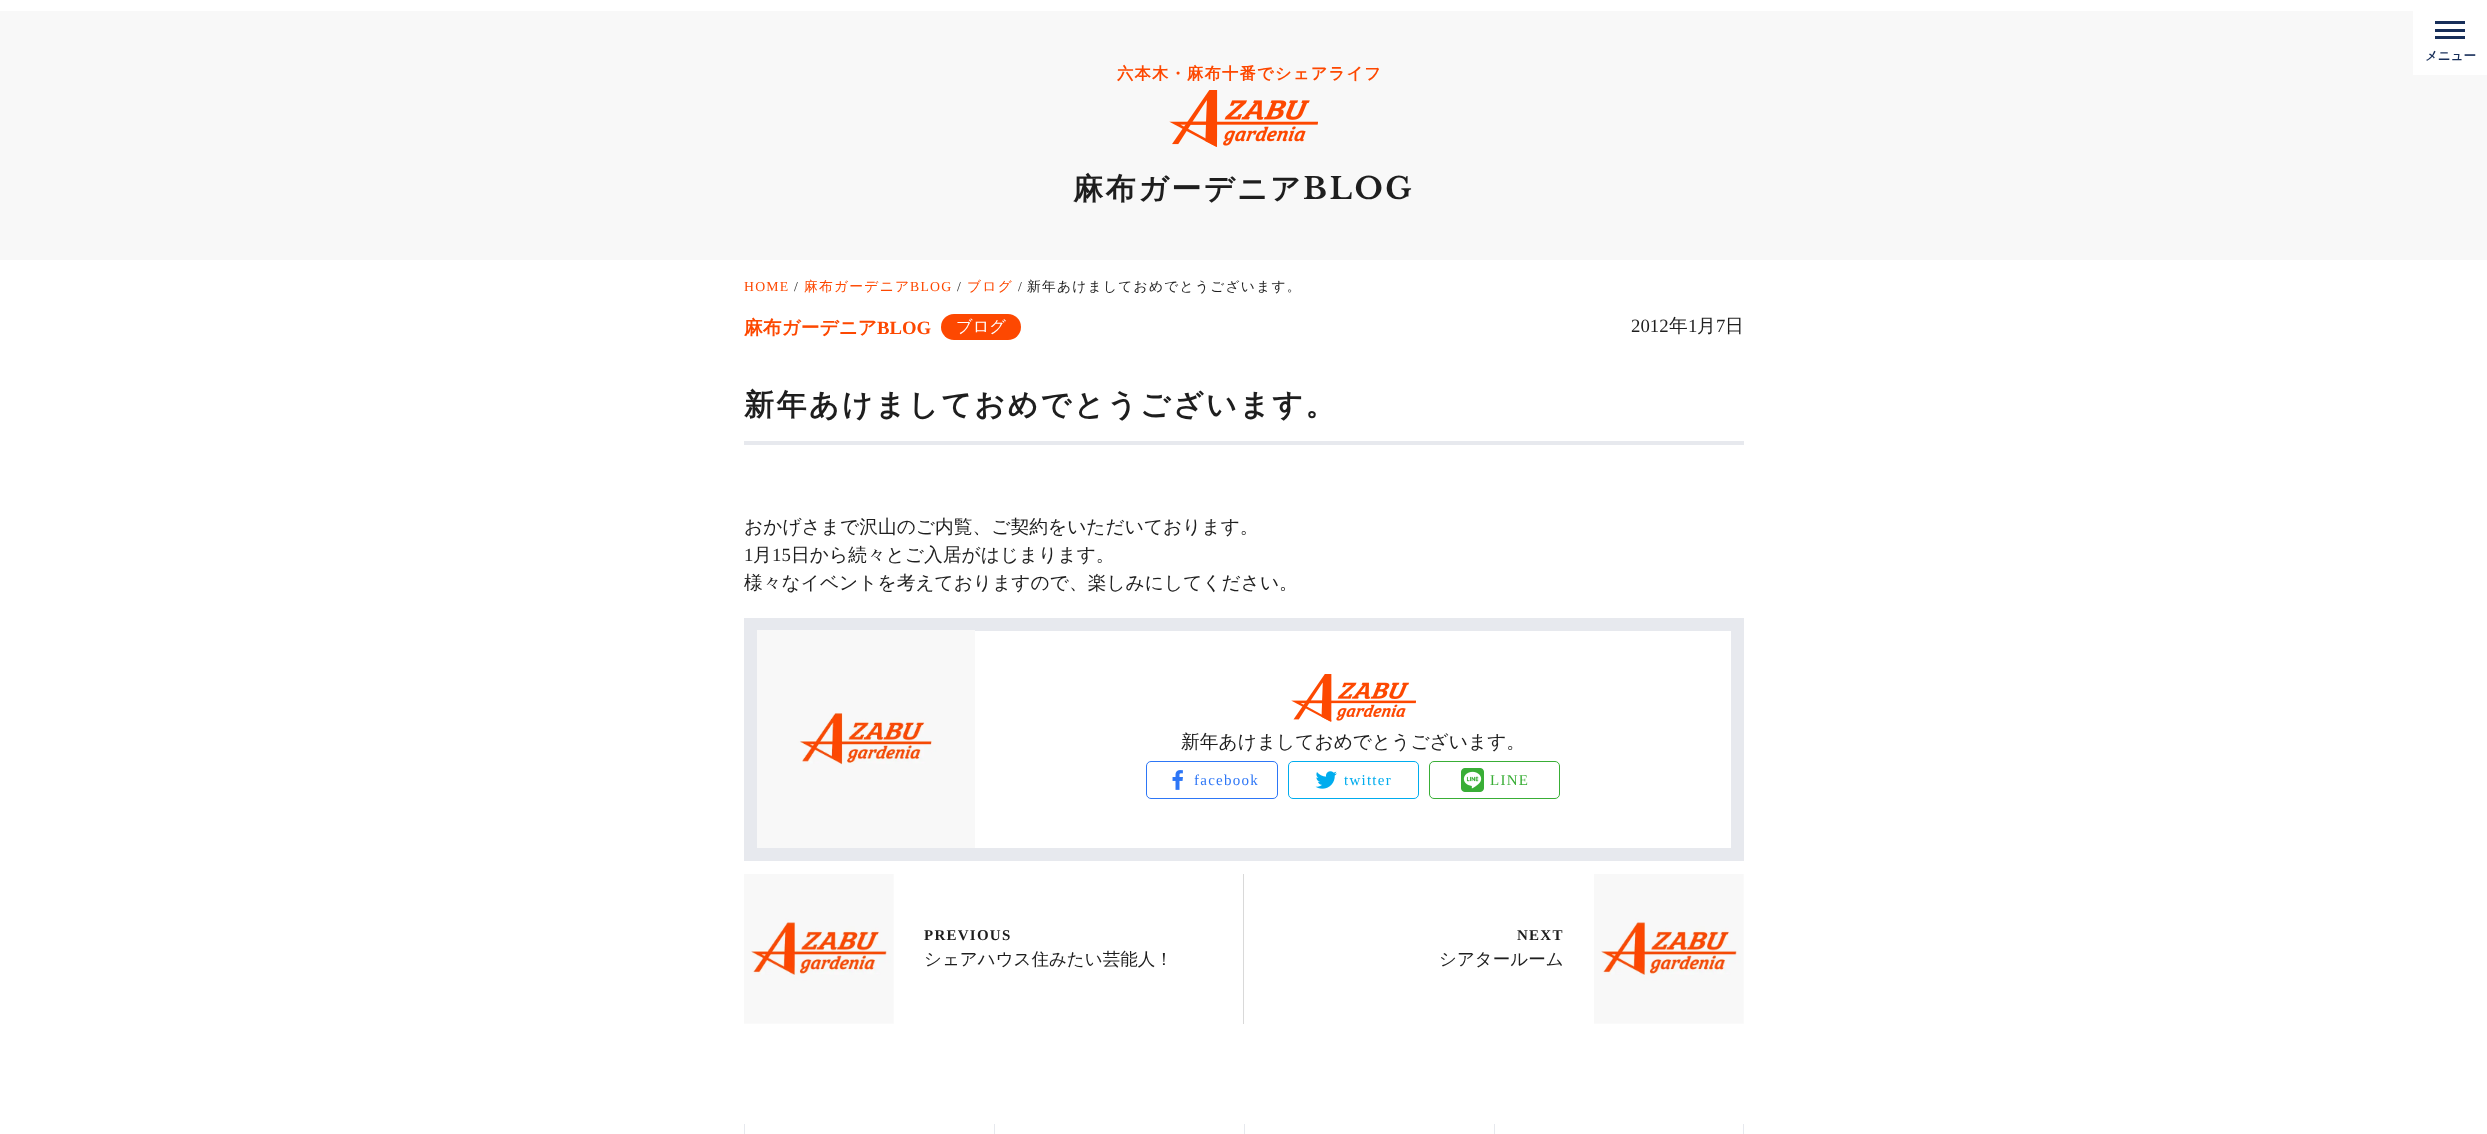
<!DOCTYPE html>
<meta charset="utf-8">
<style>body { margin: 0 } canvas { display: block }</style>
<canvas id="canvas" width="2487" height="1134"></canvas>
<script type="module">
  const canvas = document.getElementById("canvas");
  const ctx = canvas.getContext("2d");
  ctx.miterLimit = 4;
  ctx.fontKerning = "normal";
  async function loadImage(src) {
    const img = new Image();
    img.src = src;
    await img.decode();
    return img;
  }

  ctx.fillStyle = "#ffffff";
  ctx.fillRect(0, 0, 2487, 1134);
  ctx.fillStyle = "#f8f8f8";
  ctx.fillRect(0, 11, 2487, 249);
  ctx.fillStyle = "#ffffff";
  ctx.fillRect(2413, 11, 74, 64);
  ctx.fillStyle = "#172e59";
  ctx.fillRect(2435, 29, 30, 3);
  ctx.fillRect(2435, 21, 30, 3);
  ctx.fillRect(2435, 36, 30, 3);
  ctx.font = "bold 12.5px WenQuanYi Zen Hei";
  ctx.fillText("メニュー", 2425, 60);
  ctx.letterSpacing = "1.25px";
  ctx.font = "bold 16.25px WenQuanYi Zen Hei";
  ctx.fillStyle = "#fd4801";
  ctx.fillText("六本木・麻布十番でシェアライフ", 1117, 79);
  ctx.drawImage(await loadImage("img1.png"), 1169, 90, 149, 57);
  ctx.letterSpacing = "2.5px";
  ctx.font = "bold 30px WenQuanYi Zen Hei";
  ctx.fillStyle = "#1e1e1e";
  ctx.fillText("麻布ガーデニア", 1073, 199);
  ctx.font = "bold 30px Libre Baskerville";
  ctx.fillText("BLOG", 1303, 199);
  ctx.letterSpacing = "1.25px";
  ctx.font = "13.75px Liberation Serif";
  ctx.fillStyle = "#fd4801";
  ctx.fillText("HOME", 744, 291);
  ctx.fillStyle = "#1e1e1e";
  ctx.fillText("/", 794, 291);
  ctx.font = "500 13.75px WenQuanYi Zen Hei";
  ctx.fillStyle = "#fd4801";
  ctx.fillText("麻布ガーデニア", 804, 291);
  ctx.font = "13.75px Liberation Serif";
  ctx.fillText("BLOG", 910, 291);
  ctx.fillStyle = "#1e1e1e";
  ctx.fillText("/", 957, 291);
  ctx.font = "500 13.75px WenQuanYi Zen Hei";
  ctx.fillStyle = "#fd4801";
  ctx.fillText("ブログ", 967, 291);
  ctx.font = "13.75px Liberation Serif";
  ctx.fillStyle = "#1e1e1e";
  ctx.fillText("/", 1018, 291);
  ctx.font = "500 13.75px WenQuanYi Zen Hei";
  ctx.fillText("新年あけましておめでとうございます。", 1027, 291);
  ctx.letterSpacing = "0px";
  ctx.font = "bold 18.75px WenQuanYi Zen Hei";
  ctx.fillStyle = "#fd4801";
  ctx.fillText("麻布ガーデニア", 744, 334);
  ctx.font = "bold 18.75px Liberation Serif";
  ctx.fillText("BLOG", 877, 334);
  ctx.beginPath();
  ctx.roundRect(941, 314, 80, 26, 13);
  ctx.fill();
  ctx.font = "500 16.25px WenQuanYi Zen Hei";
  ctx.fillStyle = "#ffffff";
  ctx.fillText("ブログ", 956, 332);
  ctx.font = "18.75px Liberation Serif";
  ctx.fillStyle = "#1e1e1e";
  ctx.fillText("2012", 1631, 332);
  ctx.font = "500 18.75px WenQuanYi Zen Hei";
  ctx.fillText("年", 1669, 332);
  ctx.font = "18.75px Liberation Serif";
  ctx.fillText("1", 1688, 332);
  ctx.font = "500 18.75px WenQuanYi Zen Hei";
  ctx.fillText("月", 1697, 332);
  ctx.font = "18.75px Liberation Serif";
  ctx.fillText("7", 1716, 332);
  ctx.font = "500 18.75px WenQuanYi Zen Hei";
  ctx.fillText("日", 1725, 332);
  ctx.fillStyle = "#e7e9ee";
  ctx.fillRect(744, 441, 1000, 4);
  ctx.letterSpacing = "2.4px";
  ctx.font = "bold 30px WenQuanYi Zen Hei";
  ctx.fillStyle = "#1e1e1e";
  ctx.fillText("新年あけましておめでとうございます。", 744, 415);
  ctx.letterSpacing = "0px";
  ctx.font = "500 18.75px WenQuanYi Zen Hei";
  ctx.fillText("おかげさまで沢山のご内覧、ご契約をいただいております。", 744, 533);
  ctx.font = "18.75px Liberation Serif";
  ctx.fillText("1", 744, 561);
  ctx.font = "500 18.75px WenQuanYi Zen Hei";
  ctx.fillText("月", 753, 561);
  ctx.font = "18.75px Liberation Serif";
  ctx.fillText("15", 772, 561);
  ctx.font = "500 18.75px WenQuanYi Zen Hei";
  ctx.fillText("日から続々とご入居がはじまります。", 791, 561);
  ctx.fillText("様々なイベントを考えておりますので、楽しみにしてください。", 744, 589);
  ctx.strokeStyle = "#e7e9ee";
  ctx.lineWidth = 13;
  ctx.strokeRect(750.5, 624.5, 987, 230);
  ctx.drawImage(await loadImage("img2.png"), 757, 630, 218, 218);
  ctx.drawImage(await loadImage("img3.png"), 1291, 674, 125, 48);
  ctx.fillText("新年あけましておめでとうございます。", 1181, 748);
  ctx.beginPath();
  ctx.roundRect(1146.5, 761.5, 131, 37, 4.5);
  ctx.strokeStyle = "#2d76f6";
  ctx.lineWidth = 1;
  ctx.stroke();
  ctx.drawImage(await loadImage("img4.png"), 1172, 770, 11, 20);
  ctx.letterSpacing = "1.25px";
  ctx.font = "15px Liberation Serif";
  ctx.fillStyle = "#2d76f6";
  ctx.fillText("facebook", 1194, 785);
  ctx.beginPath();
  ctx.roundRect(1288.5, 761.5, 130, 37, 4.5);
  ctx.strokeStyle = "#00acee";
  ctx.stroke();
  ctx.drawImage(await loadImage("img5.png"), 1315, 771, 22, 18);
  ctx.fillStyle = "#00acee";
  ctx.fillText("twitter", 1344, 785);
  ctx.beginPath();
  ctx.roundRect(1429.5, 761.5, 130, 37, 4.5);
  ctx.strokeStyle = "#39ae36";
  ctx.stroke();
  ctx.drawImage(await loadImage("img6.png"), 1461, 768, 23, 24);
  ctx.fillStyle = "#39ae36";
  ctx.fillText("LINE", 1490, 785);
  ctx.fillStyle = "#d9d9d9";
  ctx.fillRect(1243, 874, 1, 150);
  ctx.drawImage(await loadImage("img7.png"), 744, 874, 150, 150);
  ctx.font = "bold 15px Liberation Serif";
  ctx.fillStyle = "#1e1e1e";
  ctx.fillText("PREVIOUS", 924, 940);
  ctx.letterSpacing = "0px";
  ctx.font = "500 17.5px WenQuanYi Zen Hei";
  ctx.fillText("シェアハウス住みたい芸能人！", 924, 965);
  ctx.letterSpacing = "1.25px";
  ctx.font = "bold 15px Liberation Serif";
  ctx.fillText("NEXT", 1517, 940);
  ctx.letterSpacing = "0px";
  ctx.font = "500 17.5px WenQuanYi Zen Hei";
  ctx.fillText("シアタールーム", 1439, 965);
  ctx.drawImage(await loadImage("img7.png"), 1594, 874, 150, 150);
  ctx.fillStyle = "#e7e9ee";
  ctx.fillRect(744, 1124, 1, 10);
  ctx.fillRect(994, 1124, 1, 10);
  ctx.fillRect(1244, 1124, 1, 10);
  ctx.fillRect(1743, 1124, 1, 10);
  ctx.fillRect(1494, 1124, 1, 10);
</script>
